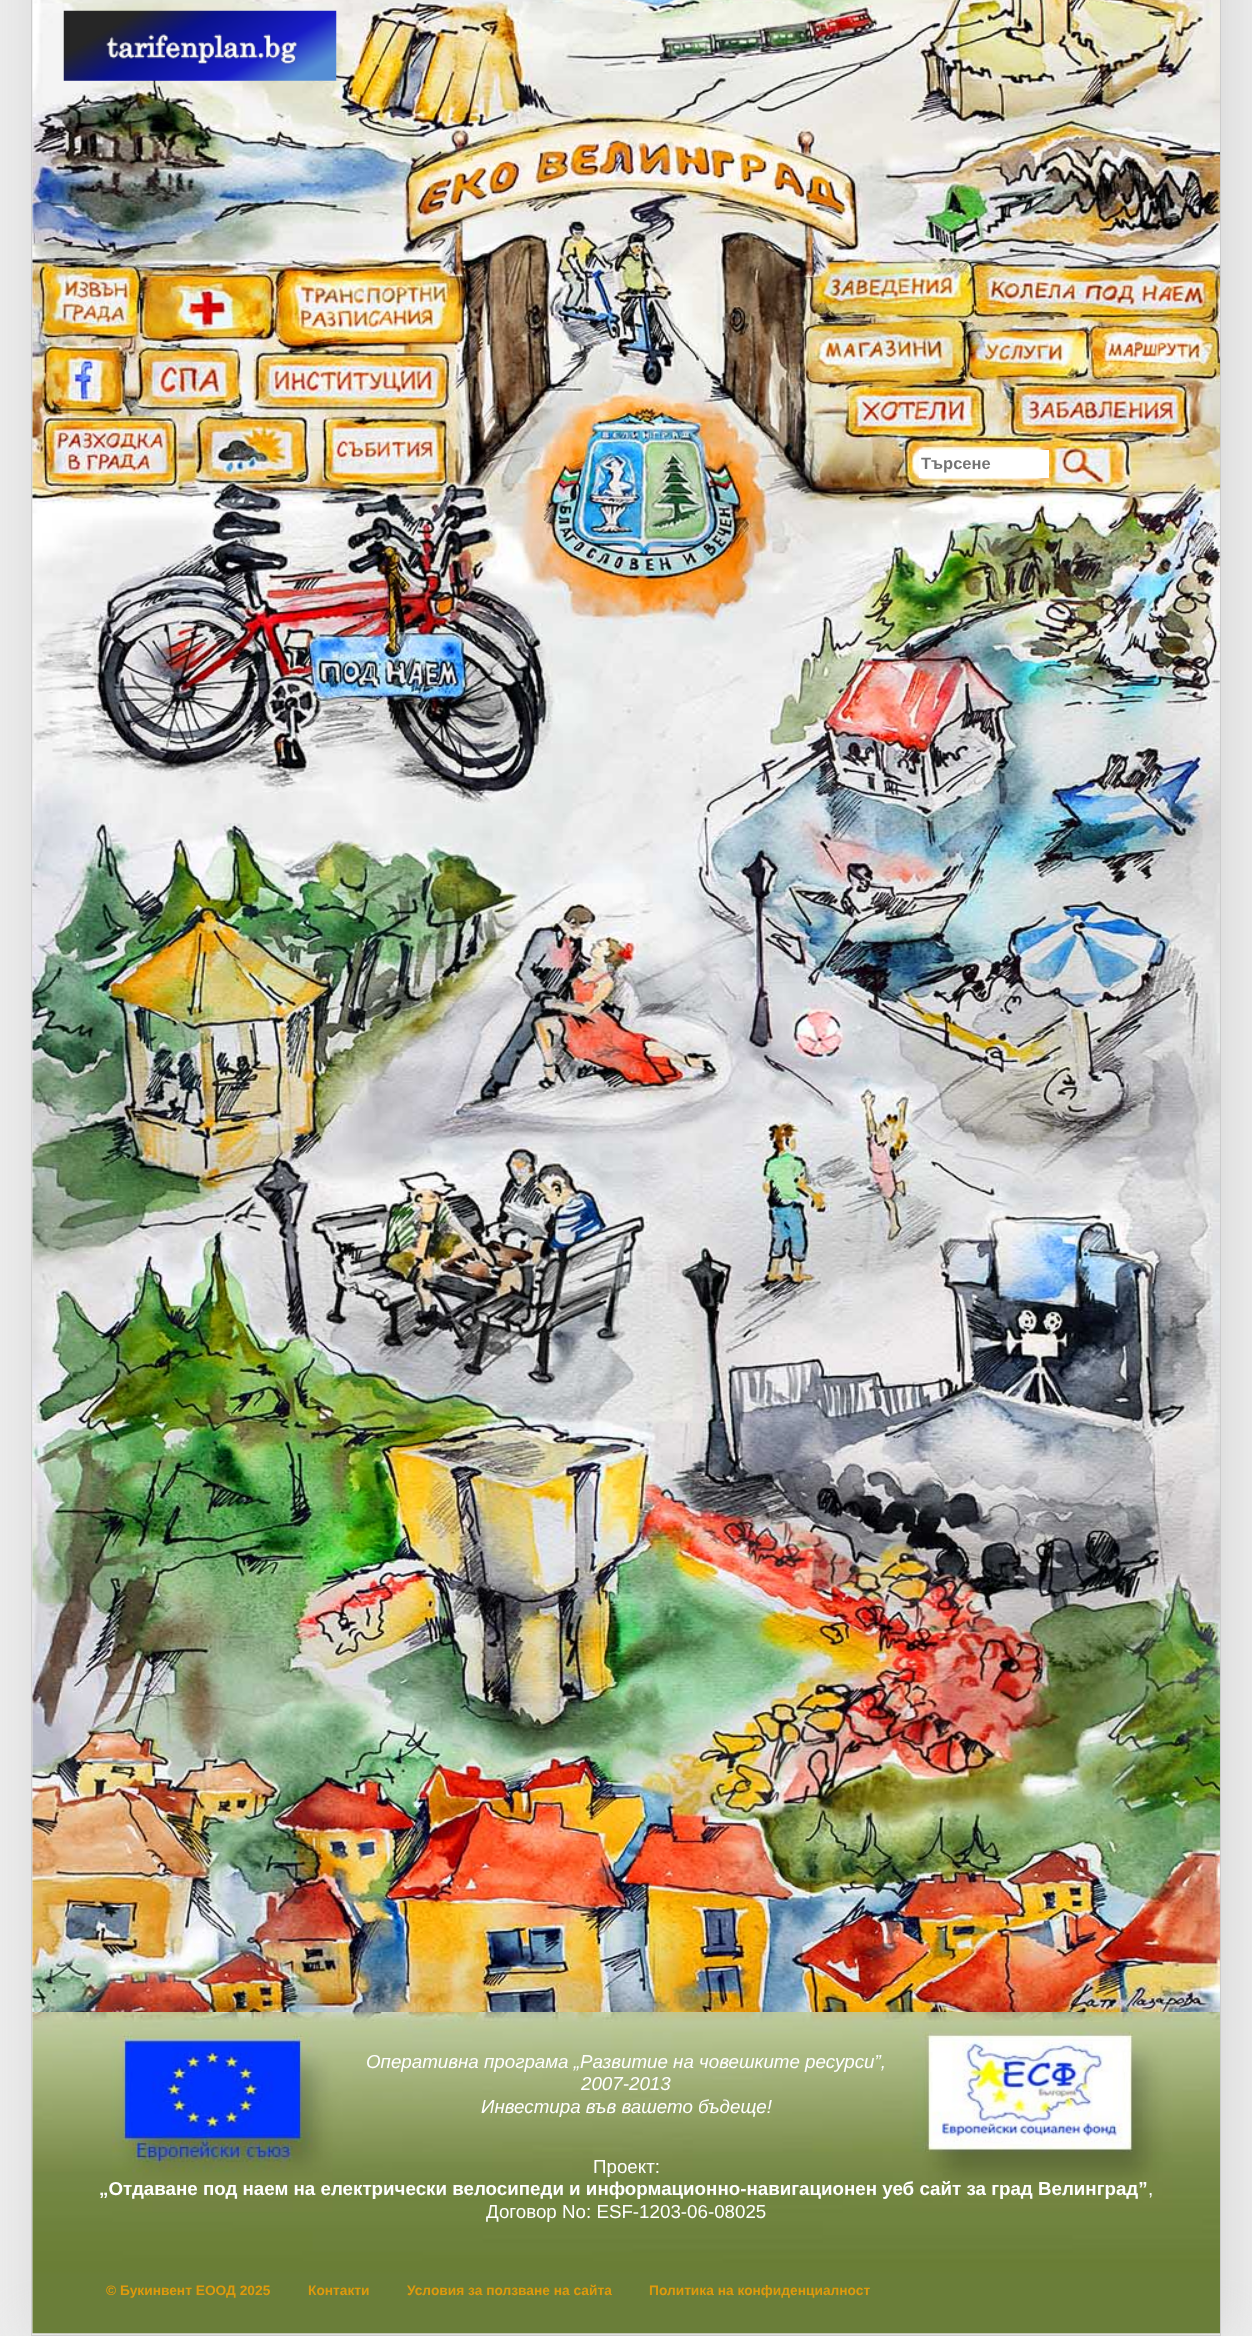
<!DOCTYPE html>
<meta charset="utf-8">
<style>body { margin: 0 } canvas { display: block }</style>
<canvas id="canvas" width="1252" height="2336"></canvas>
<script type="module">
  const canvas = document.getElementById("canvas");
  const ctx = canvas.getContext("2d");
  ctx.miterLimit = 4;
  ctx.fontKerning = "normal";
  async function loadImage(src) {
    const img = new Image();
    img.src = src;
    await img.decode();
    return img;
  }

  ctx.fillStyle = "#ededed";
  ctx.fillRect(0, 0, 1252, 2336);
  ctx.fillStyle = "#d5d5d5";
  ctx.filter = "blur(25px)";
  ctx.beginPath();
  ctx.rect(36, -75, 1190, 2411);
  ctx.fill();
  ctx.filter = "none";
  ctx.strokeStyle = "#cccccc";
  ctx.strokeRect(31.5, -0.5, 1189, 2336);
  ctx.drawImage(await loadImage("img1.png"), 32, 0, 1188, 2012);
  ctx.drawImage(await loadImage("img2.png"), 63, 10, 274, 71);
  ctx.fillStyle = "#ffffff";
  ctx.fillRect(919, 450, 130, 28);
  ctx.font = "bold 16.5px Liberation Sans";
  ctx.fillStyle = "#757575";
  ctx.fillText("Търсене", 921, 469);
  ctx.drawImage(await loadImage("img3.png"), 32, 2012, 1188, 322);
  ctx.font = "italic 18.75px Liberation Sans";
  ctx.fillStyle = "#ffffff";
  ctx.fillText("Оперативна програма „Развитие на човешките ресурси”,", 366, 2068);
  ctx.fillText("2007-2013", 581, 2090);
  ctx.fillText("Инвестира във вашето бъдеще!", 481, 2113);
  ctx.font = "18.75px Liberation Sans";
  ctx.fillText("Проект:", 593, 2173);
  ctx.font = "bold 18.75px Liberation Sans";
  ctx.fillText("„Отдаване под наем на електрически велосипеди и информационно-навигационен уеб сайт за град Велинград”", 99, 2195);
  ctx.font = "18.75px Liberation Sans";
  ctx.fillText(",", 1148, 2195);
  ctx.fillText("Договор No: ESF-1203-06-08025", 486, 2218);
  ctx.font = "bold 13.75px Liberation Sans";
  ctx.fillStyle = "#de990d";
  ctx.fillText("© Букинвент ЕООД 2025", 106, 2295);
  ctx.fillText("Контакти", 308, 2295);
  ctx.fillText("Условия за ползване на сайта", 407, 2295);
  ctx.fillText("Политика на конфиденциалност", 649, 2295);
</script>
